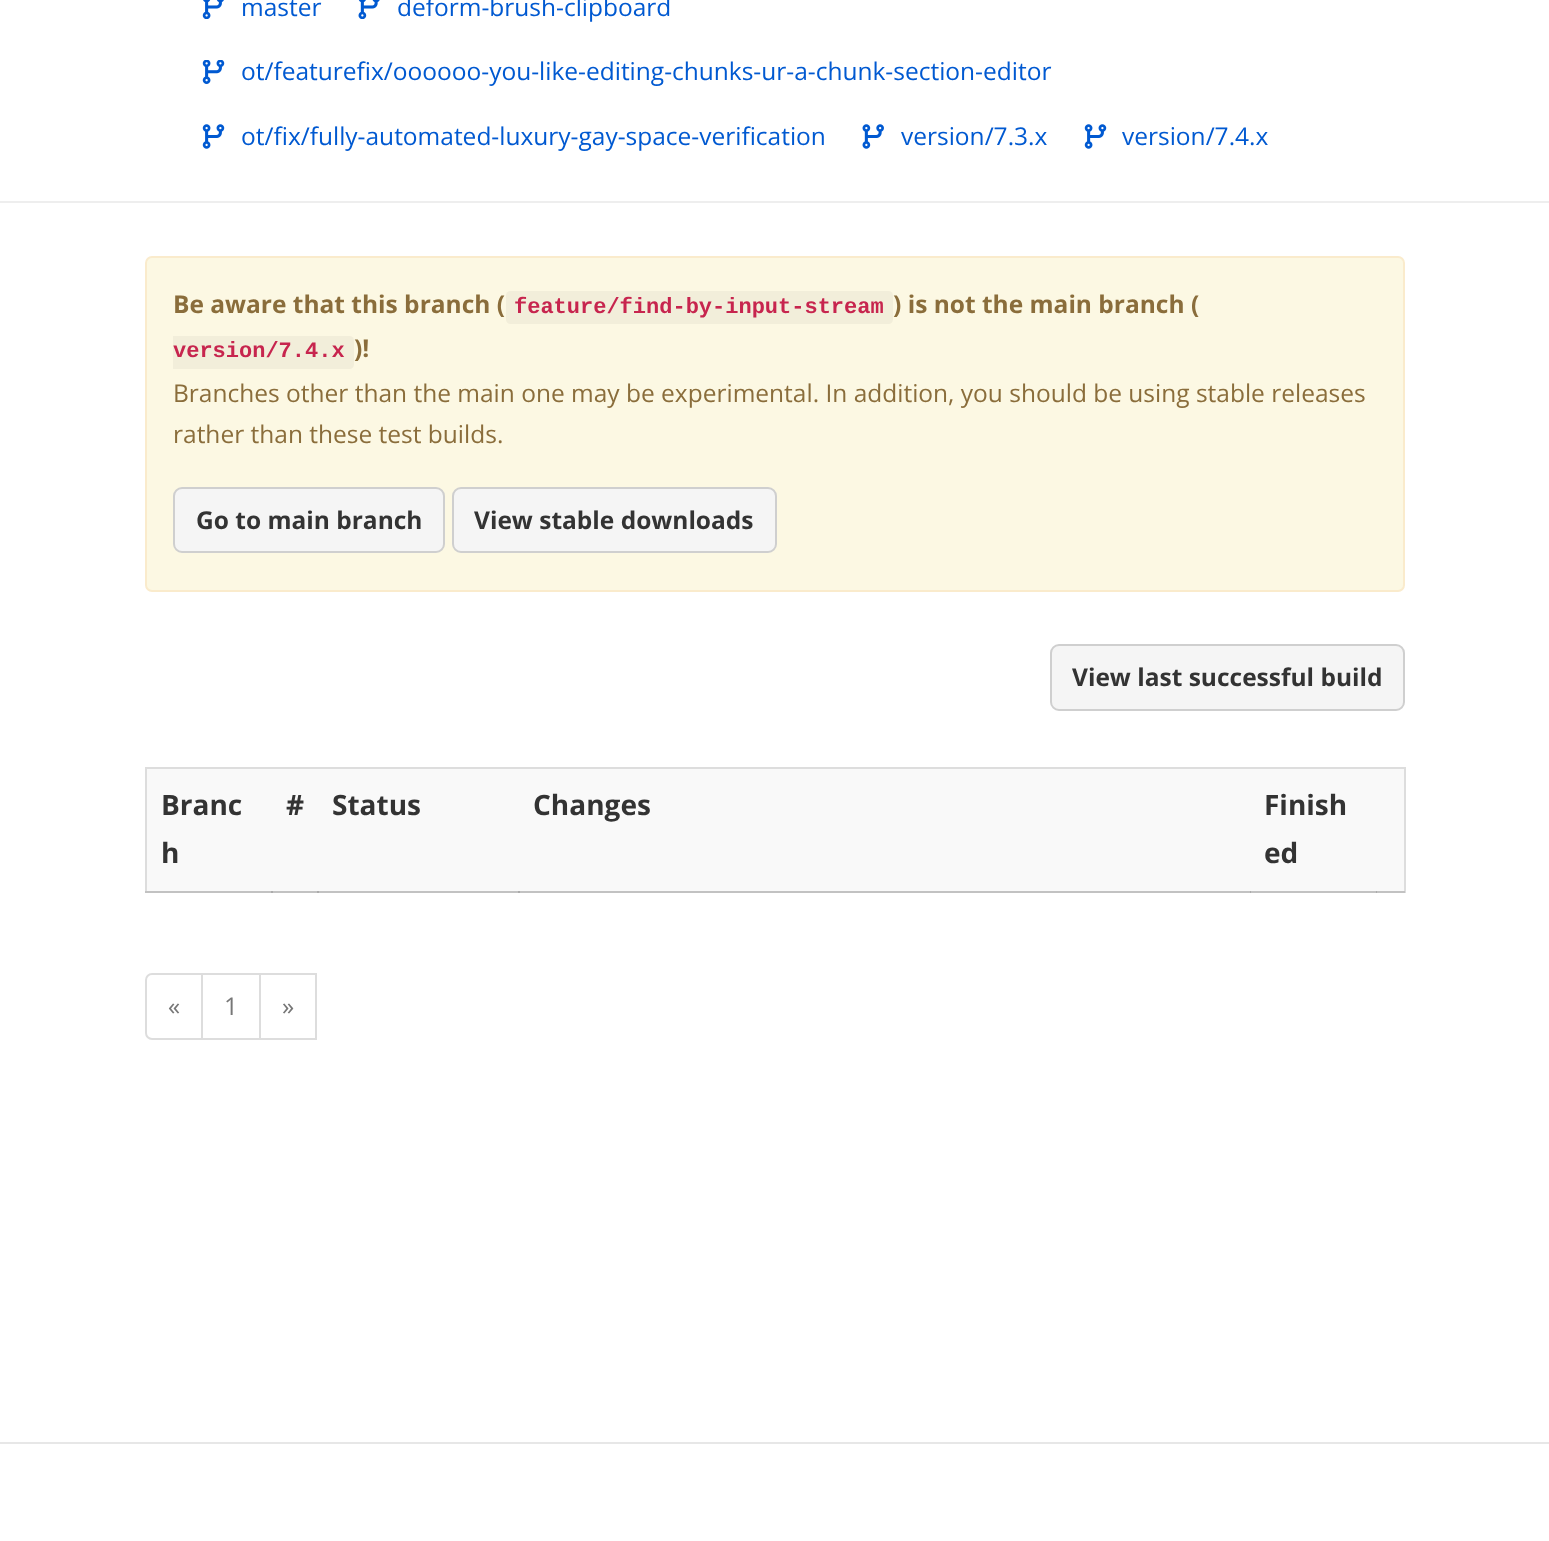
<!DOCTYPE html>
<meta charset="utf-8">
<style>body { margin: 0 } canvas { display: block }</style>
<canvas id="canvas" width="1549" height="1541"></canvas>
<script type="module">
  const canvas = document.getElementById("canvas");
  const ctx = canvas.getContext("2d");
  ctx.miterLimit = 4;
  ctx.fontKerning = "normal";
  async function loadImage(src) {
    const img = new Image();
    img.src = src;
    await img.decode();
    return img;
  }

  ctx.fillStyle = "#ffffff";
  ctx.fillRect(0, 0, 1549, 1541);
  ctx.fillStyle = "#eeeeee";
  ctx.fillRect(0, 201, 1549, 2);
  ctx.drawImage(await loadImage("img1.png"), 202, 0, 22, 19);
  ctx.font = "24.5px Open Sans";
  ctx.fillStyle = "#0059d1";
  ctx.fillText("master", 241, 16);
  ctx.drawImage(await loadImage("img2.png"), 358, 0, 22, 19);
  ctx.fillText("deform-brush-clipboard", 397, 16);
  ctx.drawImage(await loadImage("img3.png"), 202, 60, 23, 24);
  ctx.fillText("ot/featurefix/oooooo-you-like-editing-chunks-ur-a-chunk-section-editor", 241, 80);
  ctx.drawImage(await loadImage("img4.png"), 202, 124, 23, 25);
  ctx.fillText("ot/fix/fully-automated-luxury-gay-space-verification", 241, 145);
  ctx.drawImage(await loadImage("img5.png"), 862, 124, 22, 25);
  ctx.fillText("version/7.3.x", 901, 145);
  ctx.drawImage(await loadImage("img4.png"), 1084, 124, 23, 25);
  ctx.fillText("version/7.4.x", 1122, 145);
  ctx.fillStyle = "#fcf8e3";
  ctx.beginPath();
  ctx.roundRect(146, 257, 1258, 334, 6);
  ctx.fill();
  ctx.strokeStyle = "#faebcc";
  ctx.lineWidth = 2;
  ctx.stroke();
  ctx.font = "bold 24.5px Open Sans";
  ctx.fillStyle = "#8a6d3b";
  ctx.fillText("Be aware that this branch (", 173, 313);
  ctx.fillStyle = "#f2eeda";
  ctx.fillRect(515, 291, 369, 33);
  ctx.font = "bold 22px Liberation Mono";
  ctx.fillStyle = "#c7254e";
  ctx.fillText("feature/find-by-input-stream", 514, 313);
  ctx.fillStyle = "#f2eeda";
  ctx.beginPath();
  ctx.roundRect(506, 291, 9, 33, [4.5, 0, 0, 4.5]);
  ctx.fill();
  ctx.beginPath();
  ctx.roundRect(884, 291, 9, 33, [0, 4.5, 4.5, 0]);
  ctx.fill();
  ctx.font = "bold 24.5px Open Sans";
  ctx.fillStyle = "#8a6d3b";
  ctx.fillText(") is not the main branch (", 893, 313);
  ctx.fillStyle = "#f2eeda";
  ctx.fillRect(173, 336, 172, 33);
  ctx.font = "bold 22px Liberation Mono";
  ctx.fillStyle = "#c7254e";
  ctx.fillText("version/7.4.x", 173, 357);
  ctx.font = "bold 24.5px Open Sans";
  ctx.fillStyle = "#8a6d3b";
  ctx.fillText(")!", 354, 357);
  ctx.fillStyle = "#f2eeda";
  ctx.beginPath();
  ctx.roundRect(345, 336, 9, 33, [0, 4.5, 4.5, 0]);
  ctx.fill();
  ctx.font = "24.5px Open Sans";
  ctx.fillStyle = "#8a6d3b";
  ctx.fillText("Branches other than the main one may be experimental. In addition, you should be using stable releases", 173, 402);
  ctx.fillText("rather than these test builds.", 173, 443);
  ctx.fillStyle = "#f5f5f5";
  ctx.beginPath();
  ctx.roundRect(174, 488, 270, 64, 8);
  ctx.fill();
  ctx.strokeStyle = "#cfcfcf";
  ctx.stroke();
  ctx.font = "bold 24.5px Open Sans";
  ctx.fillStyle = "#333333";
  ctx.fillText("Go to main branch", 196, 529);
  ctx.fillStyle = "#f5f5f5";
  ctx.beginPath();
  ctx.roundRect(453, 488, 323, 64, 8);
  ctx.fill();
  ctx.stroke();
  ctx.fillStyle = "#333333";
  ctx.fillText("View stable downloads", 474, 529);
  ctx.fillStyle = "#f5f5f5";
  ctx.beginPath();
  ctx.roundRect(1051, 645, 353, 65, 8);
  ctx.fill();
  ctx.stroke();
  ctx.fillStyle = "#333333";
  ctx.fillText("View last successful build", 1072, 686);
  ctx.fillStyle = "#dddddd";
  ctx.fillRect(145, 767, 1260, 2);
  ctx.fillRect(1404, 767, 2, 126);
  ctx.fillStyle = "#c2c2c2";
  ctx.fillRect(145, 891, 1260, 2);
  ctx.fillStyle = "#ababab";
  ctx.fillRect(271, 891, 2, 2);
  ctx.fillRect(317, 891, 2, 2);
  ctx.fillRect(518, 891, 2, 2);
  ctx.fillRect(1250, 891, 1, 2);
  ctx.fillStyle = "#dddddd";
  ctx.fillRect(145, 767, 2, 126);
  ctx.fillStyle = "#c2c2c2";
  ctx.fillRect(145, 891, 2, 2);
  ctx.fillStyle = "#f9f9f9";
  ctx.fillRect(147, 769, 1257, 122);
  ctx.font = "bold 28px Open Sans";
  ctx.fillStyle = "#333333";
  ctx.fillText("Branc", 161, 815);
  ctx.fillText("h", 161, 863);
  ctx.fillText("#", 286, 815);
  ctx.fillText("Status", 332, 815);
  ctx.fillText("Changes", 533, 815);
  ctx.fillText("Finish", 1264, 815);
  ctx.fillText("ed", 1264, 863);
  ctx.fillStyle = "#ababab";
  ctx.fillRect(1376, 891, 1, 2);
  ctx.beginPath();
  ctx.roundRect(146, 974, 56, 65, [6, 0, 0, 6]);
  ctx.strokeStyle = "#dddddd";
  ctx.stroke();
  ctx.font = "24.5px Open Sans";
  ctx.fillStyle = "#777777";
  ctx.fillText("«", 168, 1015);
  ctx.strokeRect(202, 974, 58, 65);
  ctx.fillText("1", 224, 1015);
  ctx.strokeRect(260, 974, 56, 65);
  ctx.fillText("»", 282, 1015);
  ctx.fillStyle = "#e7e7e7";
  ctx.fillRect(0, 1442, 1549, 2);
</script>
